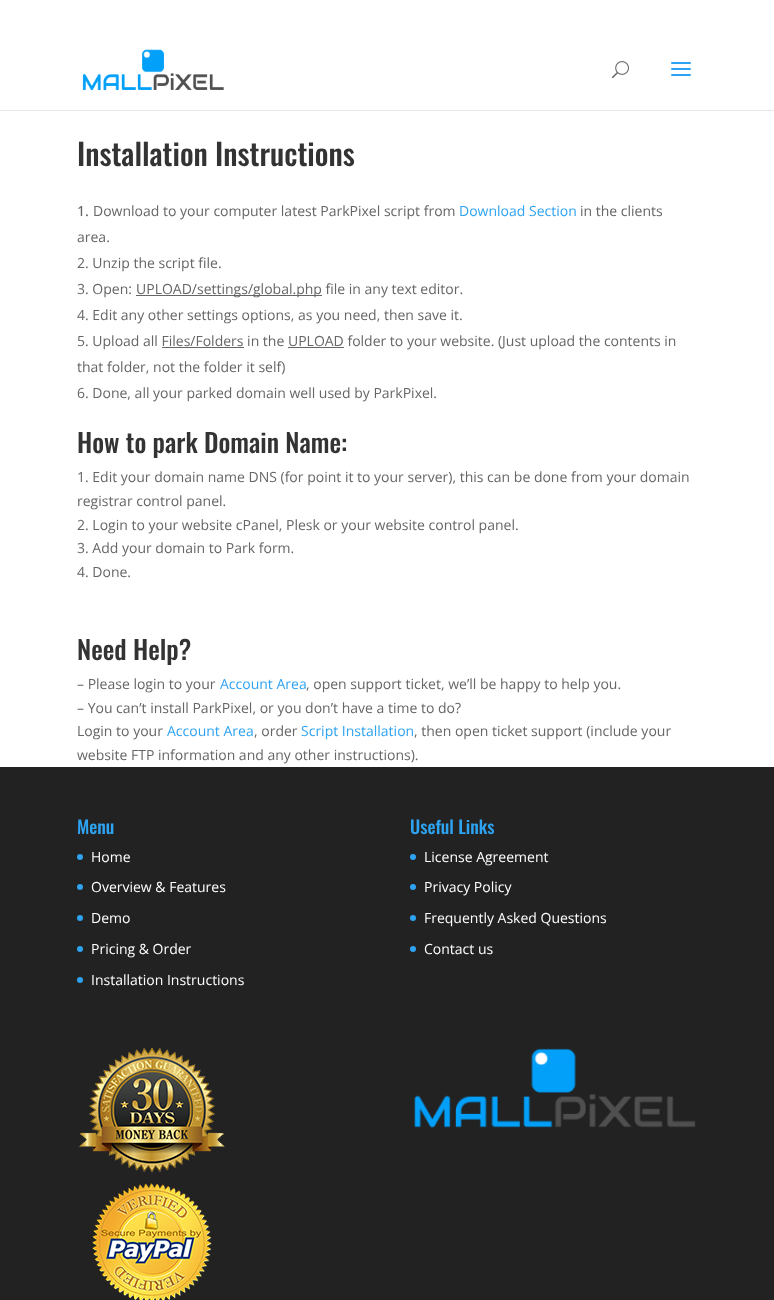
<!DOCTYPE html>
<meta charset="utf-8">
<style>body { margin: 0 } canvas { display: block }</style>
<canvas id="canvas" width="774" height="1300"></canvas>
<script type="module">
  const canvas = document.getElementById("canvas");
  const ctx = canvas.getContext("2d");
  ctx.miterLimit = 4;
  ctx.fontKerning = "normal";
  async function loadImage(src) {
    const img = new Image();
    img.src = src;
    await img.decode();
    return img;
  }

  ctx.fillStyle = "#ffffff";
  ctx.fillRect(0, 0, 774, 1300);
  ctx.fillStyle = "#e6e6e6";
  ctx.fillRect(0, 110, 774, 1);
  ctx.drawImage(await loadImage("img1.png"), 82, 49, 143, 42);
  ctx.drawImage(await loadImage("img2.png"), 612, 61, 17, 18);
  ctx.drawImage(await loadImage("img3.png"), 671, 62, 20, 14);
  ctx.font = "500 30px Oswald";
  ctx.fillStyle = "#333333";
  ctx.fillText("Installation Instructions", 77, 166);
  ctx.font = "500 14px Open Sans";
  ctx.fillStyle = "#666666";
  ctx.fillText("1.", 77, 216);
  ctx.font = "14px Open Sans";
  ctx.fillText("Download to your computer latest ParkPixel script from", 93, 216);
  ctx.fillStyle = "#2ea3f2";
  ctx.fillText("Download Section", 459, 216);
  ctx.fillStyle = "#666666";
  ctx.fillText("in the clients", 580, 216);
  ctx.fillText("area.", 77, 242);
  ctx.fillText("2. Unzip the script file.", 77, 268);
  ctx.fillText("3. Open:", 77, 294);
  ctx.fillRect(136, 295, 186, 1);
  ctx.fillText("UPLOAD/settings/global.php file in any text editor.", 136, 294);
  ctx.fillText("4. Edit any other settings options, as you need, then save it.", 77, 320);
  ctx.fillText("5. Upload all Files/Folders in the UPLOAD folder to your website. (Just upload the contents in", 77, 346);
  ctx.fillRect(162, 347, 82, 1);
  ctx.fillRect(288, 347, 56, 1);
  ctx.fillText("that folder, not the folder it self)", 77, 372);
  ctx.fillText("6. Done, all your parked domain well used by ParkPixel.", 77, 398);
  ctx.font = "500 26px Oswald";
  ctx.fillStyle = "#333333";
  ctx.fillText("How to park Domain Name:", 77, 453);
  ctx.font = "14px Open Sans";
  ctx.fillStyle = "#666666";
  ctx.fillText("1. Edit your domain name DNS (for point it to your server), this can be done from your domain", 77, 482);
  ctx.fillText("registrar control panel.", 77, 506);
  ctx.fillText("2. Login to your website cPanel, Plesk or your website control panel.", 77, 530);
  ctx.fillText("3. Add your domain to Park form.", 77, 553);
  ctx.fillText("4. Done.", 77, 577);
  ctx.font = "500 26px Oswald";
  ctx.fillStyle = "#333333";
  ctx.fillText("Need Help?", 77, 660);
  ctx.font = "14px Open Sans";
  ctx.fillStyle = "#666666";
  ctx.fillText("– Please login to your", 77, 689);
  ctx.fillStyle = "#2ea3f2";
  ctx.fillText("Account Area", 220, 689);
  ctx.fillStyle = "#666666";
  ctx.fillText(", open support ticket, we’ll be happy to help you.", 306, 689);
  ctx.fillText("– You can’t install ParkPixel, or you don’t have a time to do?", 77, 713);
  ctx.fillText("Login to your", 77, 736);
  ctx.fillStyle = "#2ea3f2";
  ctx.fillText("Account Area", 167, 736);
  ctx.fillStyle = "#666666";
  ctx.fillText(", order", 254, 736);
  ctx.fillStyle = "#2ea3f2";
  ctx.fillText("Script Installation", 301, 736);
  ctx.fillStyle = "#666666";
  ctx.fillText(", then open ticket support (include your", 414, 736);
  ctx.fillText("website FTP information and any other instructions).", 77, 760);
  ctx.fillStyle = "#222222";
  ctx.fillRect(0, 767, 774, 533);
  ctx.font = "500 18px Oswald";
  ctx.fillStyle = "#2ea3f2";
  ctx.fillText("Menu", 77, 834);
  ctx.beginPath();
  ctx.arc(80, 857, 3, 0, Math.PI * 2);
  ctx.fill();
  ctx.font = "14px Open Sans";
  ctx.fillStyle = "#ffffff";
  ctx.fillText("Home", 91, 862);
  ctx.fillStyle = "#2ea3f2";
  ctx.beginPath();
  ctx.arc(80, 887, 3, 0, Math.PI * 2);
  ctx.fill();
  ctx.fillStyle = "#ffffff";
  ctx.fillText("Overview & Features", 91, 892);
  ctx.fillStyle = "#2ea3f2";
  ctx.beginPath();
  ctx.arc(80, 918, 3, 0, Math.PI * 2);
  ctx.fill();
  ctx.fillStyle = "#ffffff";
  ctx.fillText("Demo", 91, 923);
  ctx.fillStyle = "#2ea3f2";
  ctx.beginPath();
  ctx.arc(80, 949, 3, 0, Math.PI * 2);
  ctx.fill();
  ctx.fillStyle = "#ffffff";
  ctx.fillText("Pricing & Order", 91, 954);
  ctx.fillStyle = "#2ea3f2";
  ctx.beginPath();
  ctx.arc(80, 980, 3, 0, Math.PI * 2);
  ctx.fill();
  ctx.fillStyle = "#ffffff";
  ctx.fillText("Installation Instructions", 91, 985);
  ctx.font = "500 18px Oswald";
  ctx.fillStyle = "#2ea3f2";
  ctx.fillText("Useful Links", 410, 834);
  ctx.beginPath();
  ctx.arc(413, 857, 3, 0, Math.PI * 2);
  ctx.fill();
  ctx.font = "14px Open Sans";
  ctx.fillStyle = "#ffffff";
  ctx.fillText("License Agreement", 424, 862);
  ctx.fillStyle = "#2ea3f2";
  ctx.beginPath();
  ctx.arc(413, 887, 3, 0, Math.PI * 2);
  ctx.fill();
  ctx.fillStyle = "#ffffff";
  ctx.fillText("Privacy Policy", 424, 892);
  ctx.fillStyle = "#2ea3f2";
  ctx.beginPath();
  ctx.arc(413, 918, 3, 0, Math.PI * 2);
  ctx.fill();
  ctx.fillStyle = "#ffffff";
  ctx.fillText("Frequently Asked Questions", 424, 923);
  ctx.fillStyle = "#2ea3f2";
  ctx.beginPath();
  ctx.arc(413, 949, 3, 0, Math.PI * 2);
  ctx.fill();
  ctx.fillStyle = "#ffffff";
  ctx.fillText("Contact us", 424, 954);
  ctx.drawImage(await loadImage("img4.png"), 78, 1047, 148, 126);
  ctx.drawImage(await loadImage("img5.png"), 92, 1183, 120, 117);
  ctx.drawImage(await loadImage("img6.png"), 414, 1048, 282, 80);
</script>
